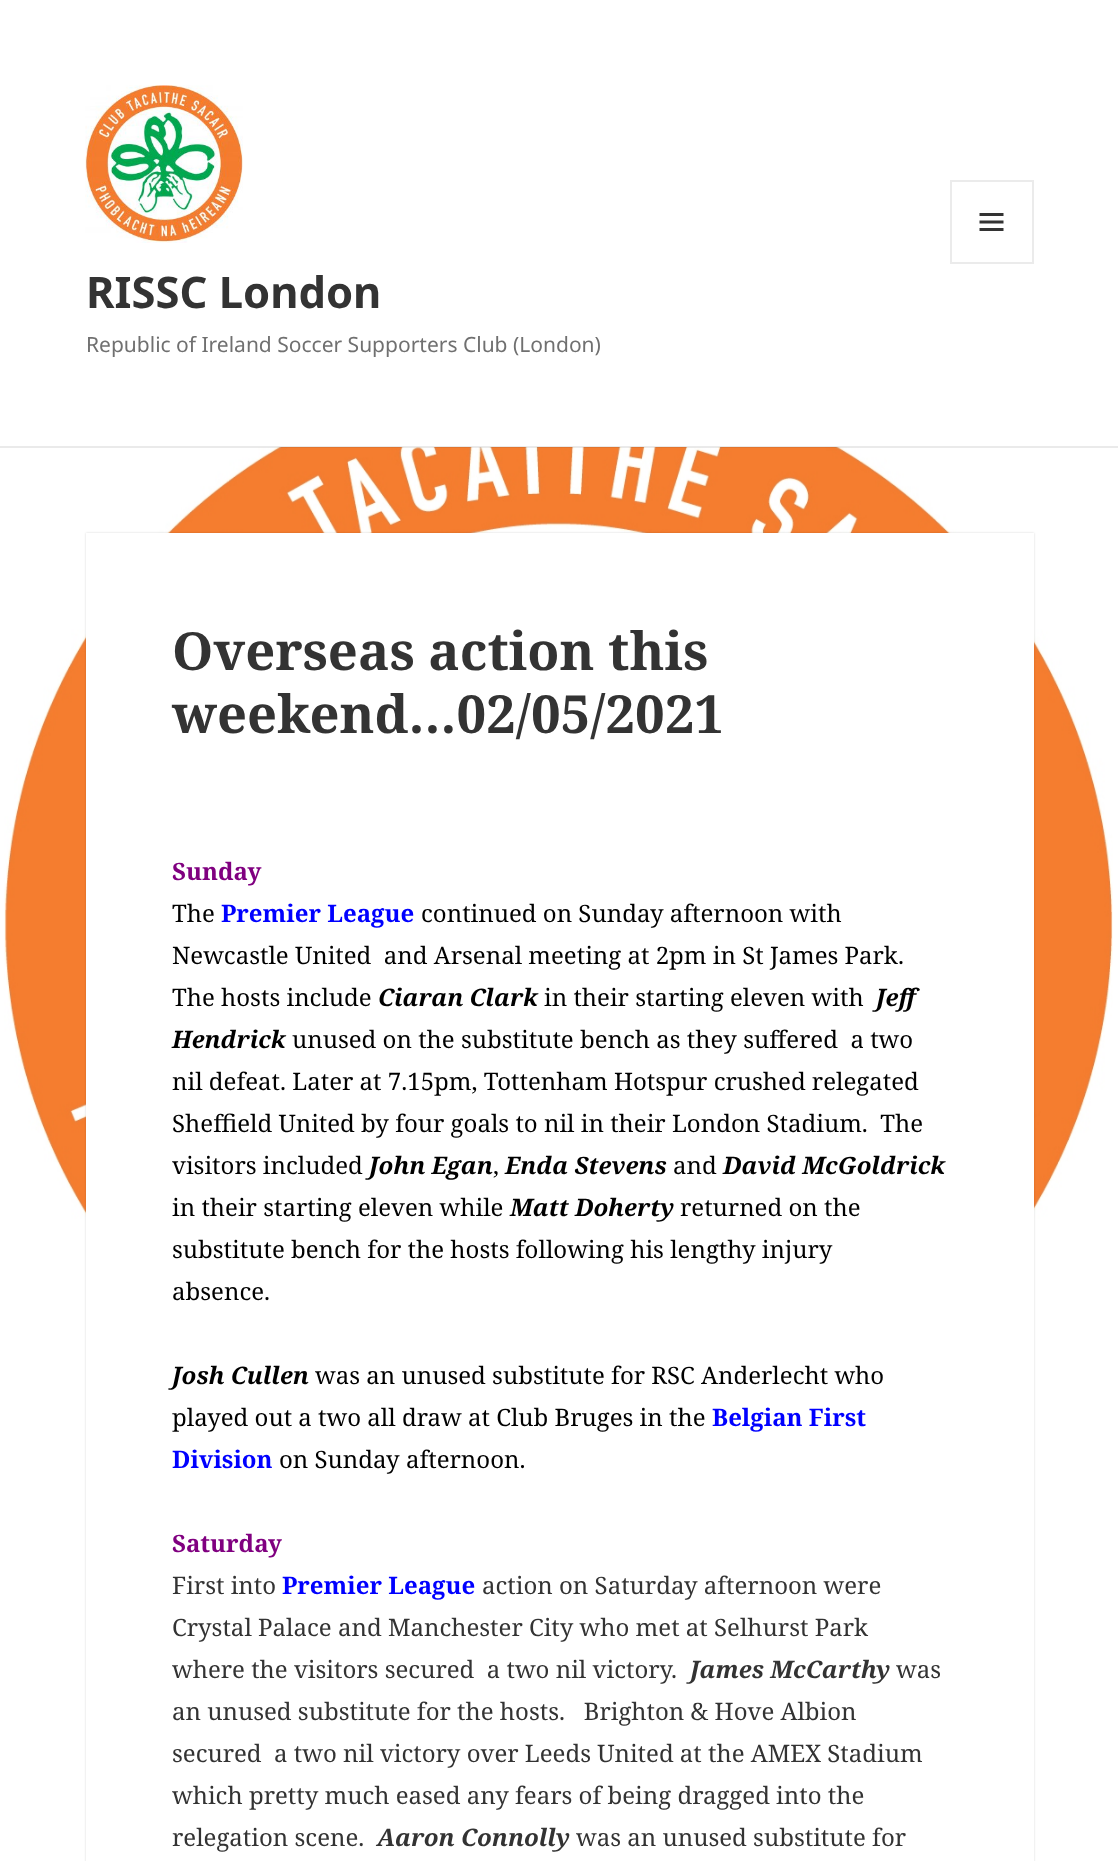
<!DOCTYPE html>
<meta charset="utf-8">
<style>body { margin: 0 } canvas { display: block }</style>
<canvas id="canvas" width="1118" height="1861"></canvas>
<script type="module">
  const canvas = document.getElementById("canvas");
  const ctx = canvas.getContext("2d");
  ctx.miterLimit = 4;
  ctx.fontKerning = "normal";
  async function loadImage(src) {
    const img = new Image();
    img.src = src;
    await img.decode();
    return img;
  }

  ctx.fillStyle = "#ffffff";
  ctx.fillRect(0, 0, 1118, 1861);
  ctx.drawImage(await loadImage("img1.png"), 4, 447, 1109, 1033);
  ctx.fillStyle = "rgba(51, 51, 51, 0.1)";
  ctx.fillRect(0, 446, 1118, 2);
  ctx.drawImage(await loadImage("img2.png"), 85, 85, 158, 158);
  ctx.strokeStyle = "#ebebeb";
  ctx.lineWidth = 2;
  ctx.strokeRect(951, 181, 82, 82);
  ctx.drawImage(await loadImage("img3.png"), 979, 213, 25, 18);
  ctx.font = "bold 43.5px Noto Sans";
  ctx.fillStyle = "#333333";
  ctx.fillText("RISSC London", 86, 308);
  ctx.font = "21px Noto Sans";
  ctx.fillStyle = "#707070";
  ctx.fillText("Republic of Ireland Soccer Supporters Club (London)", 86, 352);
  ctx.fillStyle = "rgba(0, 0, 0, 0.15)";
  ctx.filter = "blur(1px)";
  ctx.beginPath();
  ctx.rect(86, 533, 948, 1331);
  ctx.fill();
  ctx.filter = "none";
  ctx.fillStyle = "#ffffff";
  ctx.fillRect(86, 533, 948, 1328);
  ctx.font = "bold 52.5px Noto Serif";
  ctx.fillStyle = "#333333";
  ctx.fillText("Overseas action this", 172, 670);
  ctx.fillText("weekend…02/05/2021", 172, 733);
  ctx.font = "bold 24px Noto Serif";
  ctx.fillStyle = "#800080";
  ctx.fillText("Sunday", 172, 880);
  ctx.font = "24px Noto Serif";
  ctx.fillStyle = "#000000";
  ctx.fillText("The", 172, 922);
  ctx.font = "bold 24px Noto Serif";
  ctx.fillStyle = "#0000ff";
  ctx.fillText("Premier League", 221, 922);
  ctx.font = "24px Noto Serif";
  ctx.fillStyle = "#000000";
  ctx.fillText("continued on Sunday afternoon with", 421, 922);
  ctx.fillText("Newcastle United  and Arsenal meeting at 2pm in St James Park.", 172, 964);
  ctx.fillText("The hosts include", 172, 1006);
  ctx.font = "italic bold 24px Noto Serif";
  ctx.fillText("Ciaran Clark", 378, 1006);
  ctx.font = "24px Noto Serif";
  ctx.fillText("in their starting eleven with", 544, 1006);
  ctx.font = "italic bold 24px Noto Serif";
  ctx.fillText("Jeff", 876, 1006);
  ctx.fillText("Hendrick", 172, 1048);
  ctx.font = "24px Noto Serif";
  ctx.fillText("unused on the substitute bench as they suffered  a two", 292, 1048);
  ctx.fillText("nil defeat. Later at 7.15pm, Tottenham Hotspur crushed relegated", 172, 1090);
  ctx.fillText("Sheffield United by four goals to nil in their London Stadium.  The", 172, 1132);
  ctx.fillText("visitors included", 172, 1174);
  ctx.font = "italic bold 24px Noto Serif";
  ctx.fillText("John Egan", 369, 1174);
  ctx.font = "24px Noto Serif";
  ctx.fillText(",", 493, 1174);
  ctx.font = "italic bold 24px Noto Serif";
  ctx.fillText("Enda Stevens", 505, 1174);
  ctx.font = "24px Noto Serif";
  ctx.fillText("and", 673, 1174);
  ctx.font = "italic bold 24px Noto Serif";
  ctx.fillText("David McGoldrick", 723, 1174);
  ctx.font = "24px Noto Serif";
  ctx.fillText("in their starting eleven while", 172, 1216);
  ctx.font = "italic bold 24px Noto Serif";
  ctx.fillText("Matt Doherty", 510, 1216);
  ctx.font = "24px Noto Serif";
  ctx.fillText("returned on the", 680, 1216);
  ctx.fillText("substitute bench for the hosts following his lengthy injury", 172, 1258);
  ctx.fillText("absence.", 172, 1300);
  ctx.font = "italic bold 24px Noto Serif";
  ctx.fillText("Josh Cullen", 172, 1384);
  ctx.font = "24px Noto Serif";
  ctx.fillText("was an unused substitute for RSC Anderlecht who", 315, 1384);
  ctx.fillText("played out a two all draw at Club Bruges in the", 172, 1426);
  ctx.font = "bold 24px Noto Serif";
  ctx.fillStyle = "#0000ff";
  ctx.fillText("Belgian First", 712, 1426);
  ctx.fillText("Division", 172, 1468);
  ctx.font = "24px Noto Serif";
  ctx.fillStyle = "#000000";
  ctx.fillText("on Sunday afternoon.", 279, 1468);
  ctx.font = "bold 24px Noto Serif";
  ctx.fillStyle = "#800080";
  ctx.fillText("Saturday", 172, 1552);
  ctx.font = "24px Noto Serif";
  ctx.fillStyle = "#333333";
  ctx.fillText("First into", 172, 1594);
  ctx.font = "bold 24px Noto Serif";
  ctx.fillStyle = "#0000ff";
  ctx.fillText("Premier League", 282, 1594);
  ctx.font = "24px Noto Serif";
  ctx.fillStyle = "#333333";
  ctx.fillText("action on Saturday afternoon were", 482, 1594);
  ctx.fillText("Crystal Palace and Manchester City who met at Selhurst Park", 172, 1636);
  ctx.fillText("where the visitors secured  a two nil victory.", 172, 1678);
  ctx.font = "italic bold 24px Noto Serif";
  ctx.fillText("James McCarthy", 690, 1678);
  ctx.font = "24px Noto Serif";
  ctx.fillText("was", 896, 1678);
  ctx.fillText("an unused substitute for the hosts.   Brighton & Hove Albion", 172, 1720);
  ctx.fillText("secured  a two nil victory over Leeds United at the AMEX Stadium", 172, 1762);
  ctx.fillText("which pretty much eased any fears of being dragged into the", 172, 1804);
  ctx.fillText("relegation scene.", 172, 1846);
  ctx.font = "italic bold 24px Noto Serif";
  ctx.fillText("Aaron Connolly", 377, 1846);
  ctx.font = "24px Noto Serif";
  ctx.fillText("was an unused substitute for", 576, 1846);
</script>
